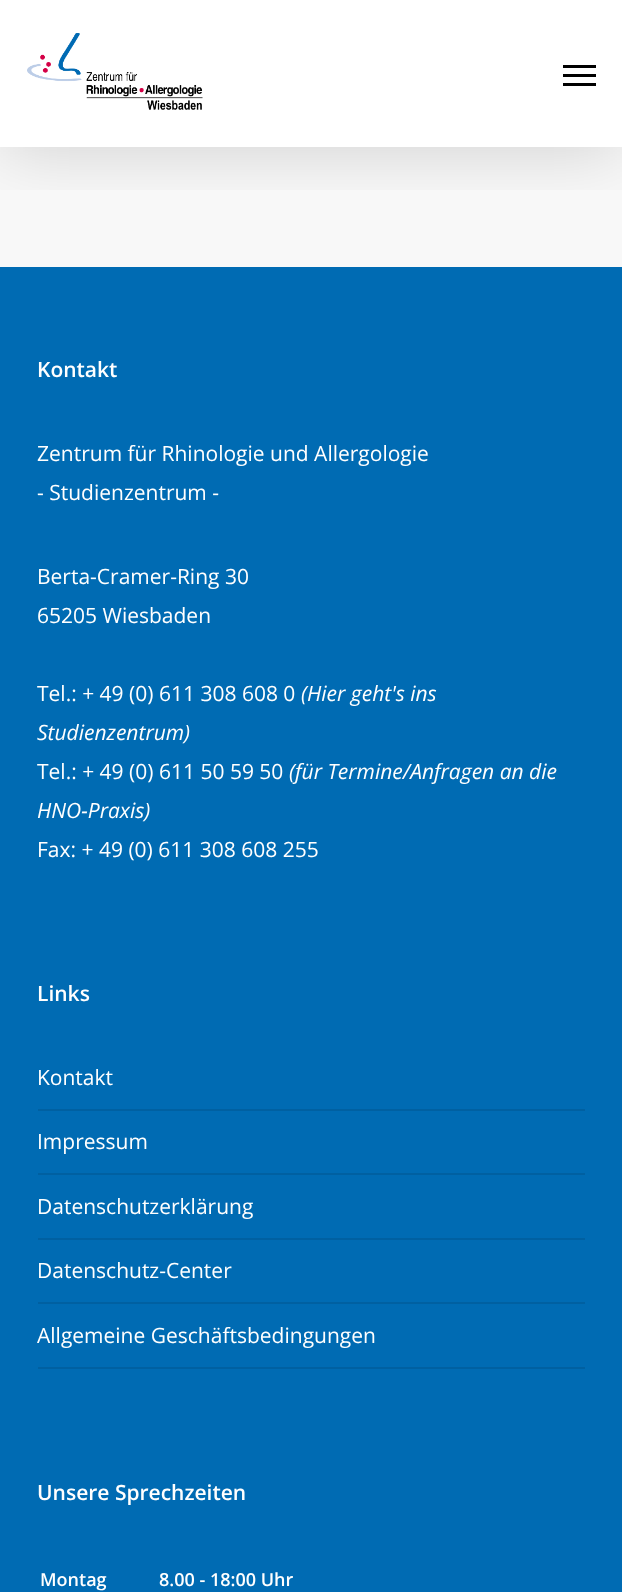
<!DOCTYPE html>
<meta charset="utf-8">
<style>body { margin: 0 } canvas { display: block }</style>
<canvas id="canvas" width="622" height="1592"></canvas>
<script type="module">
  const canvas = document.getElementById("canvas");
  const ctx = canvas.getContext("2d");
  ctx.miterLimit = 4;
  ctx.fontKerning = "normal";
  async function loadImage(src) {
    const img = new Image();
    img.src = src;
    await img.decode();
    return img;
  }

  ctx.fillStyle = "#ffffff";
  ctx.fillRect(0, 0, 622, 1592);
  ctx.fillStyle = "#f8f8f8";
  ctx.fillRect(0, 147, 622, 120);
  ctx.save();
  ctx.beginPath();
  ctx.rect(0, 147, 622, 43);
  ctx.clip();
  ctx.fillStyle = "rgba(0, 0, 0, 0.15)";
  ctx.filter = "blur(34px)";
  ctx.beginPath();
  ctx.rect(0, 5, 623, 147);
  ctx.fill();
  ctx.filter = "none";
  ctx.restore();
  ctx.drawImage(await loadImage("img1.png"), 27, 33, 176, 77);
  ctx.fillStyle = "#000000";
  ctx.fillRect(563, 65, 33, 3);
  ctx.fillRect(563, 83, 33, 3);
  ctx.fillRect(563, 74, 33, 3);
  ctx.fillStyle = "#006bb3";
  ctx.fillRect(0, 267, 622, 1325);
  ctx.font = "600 21px Open Sans";
  ctx.fillStyle = "#ffffff";
  ctx.fillText("Kontakt", 37, 377);
  ctx.font = "21px Open Sans";
  ctx.fillText("Zentrum für Rhinologie und Allergologie", 37, 461);
  ctx.fillText("- Studienzentrum -", 37, 500);
  ctx.fillText("Berta-Cramer-Ring 30", 37, 584);
  ctx.fillText("65205 Wiesbaden", 37, 623);
  ctx.fillText("Tel.: + 49 (0) 611 308 608 0", 37, 701);
  ctx.font = "italic 21px Open Sans";
  ctx.fillText("(Hier geht's ins", 301, 701);
  ctx.fillText("Studienzentrum)", 37, 740);
  ctx.font = "21px Open Sans";
  ctx.fillText("Tel.: + 49 (0) 611 50 59 50", 37, 779);
  ctx.font = "italic 21px Open Sans";
  ctx.fillText("(für Termine/Anfragen an die", 289, 779);
  ctx.fillText("HNO-Praxis)", 37, 818);
  ctx.font = "21px Open Sans";
  ctx.fillText("Fax: + 49 (0) 611 308 608 255", 37, 857);
  ctx.font = "600 21px Open Sans";
  ctx.fillText("Links", 37, 1001);
  ctx.fillStyle = "#0060a1";
  ctx.fillRect(38, 1109, 547, 2);
  ctx.font = "21px Open Sans";
  ctx.fillStyle = "#ffffff";
  ctx.fillText("Kontakt", 37, 1085);
  ctx.fillStyle = "#0060a1";
  ctx.fillRect(38, 1173, 547, 2);
  ctx.fillStyle = "#ffffff";
  ctx.fillText("Impressum", 37, 1149);
  ctx.fillStyle = "#0060a1";
  ctx.fillRect(38, 1238, 547, 2);
  ctx.fillStyle = "#ffffff";
  ctx.fillText("Datenschutzerklärung", 37, 1214);
  ctx.fillStyle = "#0060a1";
  ctx.fillRect(38, 1302, 547, 2);
  ctx.fillStyle = "#ffffff";
  ctx.fillText("Datenschutz-Center", 37, 1278);
  ctx.fillStyle = "#0060a1";
  ctx.fillRect(38, 1367, 547, 2);
  ctx.fillStyle = "#ffffff";
  ctx.fillText("Allgemeine Geschäftsbedingungen", 37, 1343);
  ctx.font = "600 21px Open Sans";
  ctx.fillText("Unsere Sprechzeiten", 37, 1500);
  ctx.font = "600 18px Open Sans";
  ctx.fillText("Montag", 40, 1586);
  ctx.fillText("8.00 - 18:00 Uhr", 159, 1586);
</script>
